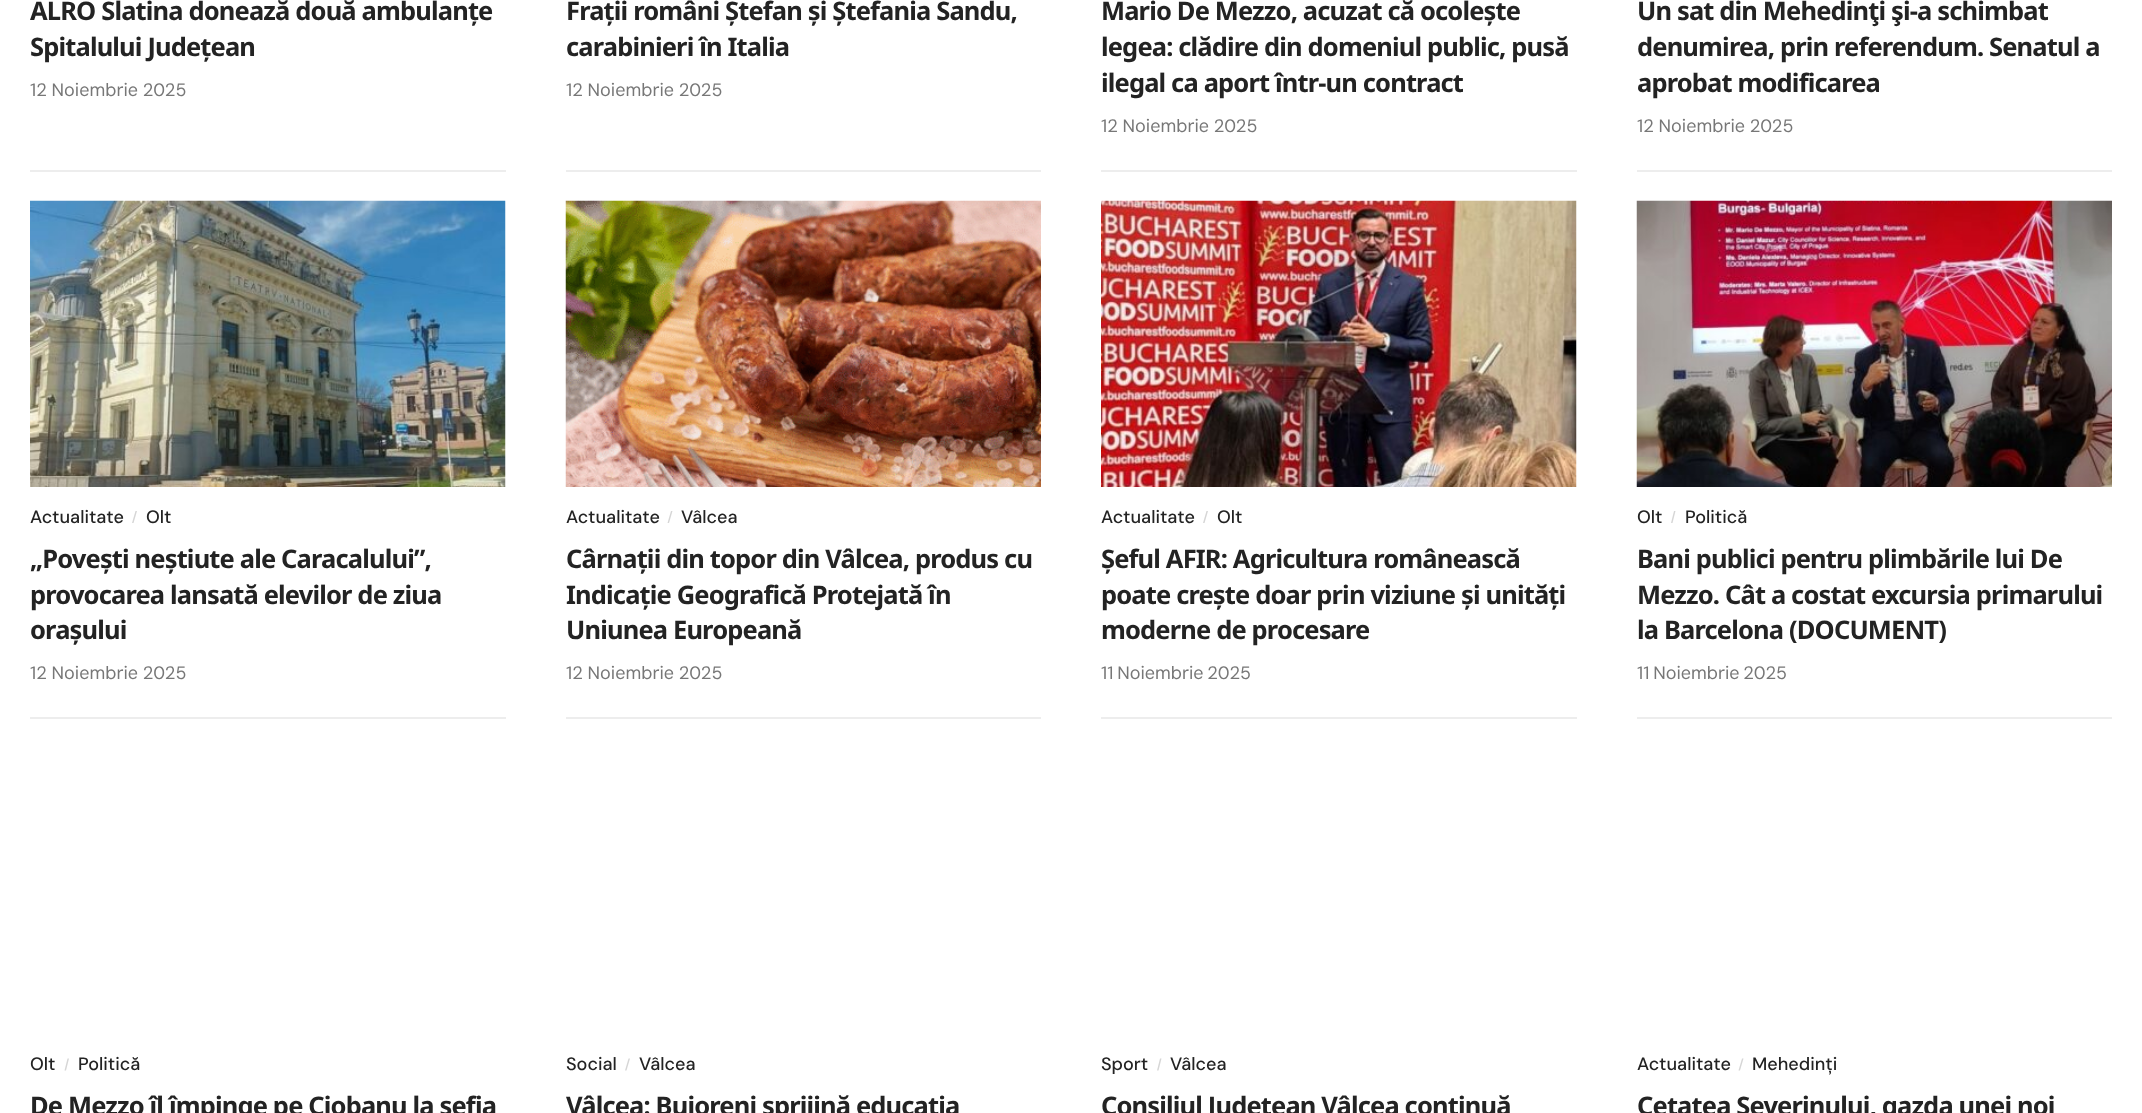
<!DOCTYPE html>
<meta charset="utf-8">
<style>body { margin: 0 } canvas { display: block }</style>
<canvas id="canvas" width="2142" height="1113"></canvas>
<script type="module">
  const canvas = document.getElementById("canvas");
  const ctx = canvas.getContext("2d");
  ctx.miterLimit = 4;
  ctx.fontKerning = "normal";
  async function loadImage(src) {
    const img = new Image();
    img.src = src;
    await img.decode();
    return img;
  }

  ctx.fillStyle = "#ffffff";
  ctx.fillRect(0, 0, 2142, 1113);
  ctx.letterSpacing = "-0.85px";
  ctx.font = "bold 25.5px Noto Sans";
  ctx.fillStyle = "#232323";
  ctx.fillText("ALRO Slatina donează două ambulanțe", 30, 20);
  ctx.fillText("Spitalului Județean", 30, 56);
  ctx.letterSpacing = "0px";
  ctx.font = "18px DM Sans";
  ctx.fillStyle = "#777777";
  ctx.fillText("12 Noiembrie 2025", 30, 96);
  ctx.fillStyle = "#ededed";
  ctx.fillRect(30, 170, 476, 2);
  ctx.letterSpacing = "-0.85px";
  ctx.font = "bold 25.5px Noto Sans";
  ctx.fillStyle = "#232323";
  ctx.fillText("Frații români Ștefan și Ștefania Sandu,", 566, 20);
  ctx.fillText("carabinieri în Italia", 566, 56);
  ctx.letterSpacing = "0px";
  ctx.font = "18px DM Sans";
  ctx.fillStyle = "#777777";
  ctx.fillText("12 Noiembrie 2025", 566, 96);
  ctx.fillStyle = "#ededed";
  ctx.fillRect(566, 170, 475, 2);
  ctx.letterSpacing = "-0.85px";
  ctx.font = "bold 25.5px Noto Sans";
  ctx.fillStyle = "#232323";
  ctx.fillText("Mario De Mezzo, acuzat că ocolește", 1101, 20);
  ctx.fillText("legea: clădire din domeniul public, pusă", 1101, 56);
  ctx.fillText("ilegal ca aport într-un contract", 1101, 92);
  ctx.letterSpacing = "0px";
  ctx.font = "18px DM Sans";
  ctx.fillStyle = "#777777";
  ctx.fillText("12 Noiembrie 2025", 1101, 132);
  ctx.fillStyle = "#ededed";
  ctx.fillRect(1101, 170, 476, 2);
  ctx.letterSpacing = "-0.85px";
  ctx.font = "bold 25.5px Noto Sans";
  ctx.fillStyle = "#232323";
  ctx.fillText("Un sat din Mehedinţi şi-a schimbat", 1637, 20);
  ctx.fillText("denumirea, prin referendum. Senatul a", 1637, 56);
  ctx.fillText("aprobat modificarea", 1637, 92);
  ctx.letterSpacing = "0px";
  ctx.font = "18px DM Sans";
  ctx.fillStyle = "#777777";
  ctx.fillText("12 Noiembrie 2025", 1637, 132);
  ctx.fillStyle = "#ededed";
  ctx.fillRect(1637, 170, 475, 2);
  ctx.drawImage(await loadImage("img1.png"), 30, 200, 476, 287);
  ctx.font = "500 18px DM Sans";
  ctx.fillStyle = "#232323";
  ctx.fillText("Actualitate", 30, 523);
  ctx.fillStyle = "#d6d6d6";
  ctx.beginPath();
  ctx.moveTo(135.5, 511);
  ctx.lineTo(137, 511);
  ctx.lineTo(133.5, 523);
  ctx.lineTo(132, 523);
  ctx.closePath();
  ctx.fill();
  ctx.fillStyle = "#232323";
  ctx.fillText("Olt", 146, 523);
  ctx.letterSpacing = "-0.85px";
  ctx.font = "bold 25.5px Noto Sans";
  ctx.fillText("„Povești neștiute ale Caracalului”,", 30, 568);
  ctx.fillText("provocarea lansată elevilor de ziua", 30, 604);
  ctx.fillText("orașului", 30, 639);
  ctx.letterSpacing = "0px";
  ctx.font = "18px DM Sans";
  ctx.fillStyle = "#777777";
  ctx.fillText("12 Noiembrie 2025", 30, 679);
  ctx.fillStyle = "#ededed";
  ctx.fillRect(30, 717, 476, 2);
  ctx.drawImage(await loadImage("img2.png"), 565, 200, 476, 287);
  ctx.font = "500 18px DM Sans";
  ctx.fillStyle = "#232323";
  ctx.fillText("Actualitate", 566, 523);
  ctx.fillStyle = "#d6d6d6";
  ctx.beginPath();
  ctx.moveTo(671, 511);
  ctx.lineTo(672.5, 511);
  ctx.lineTo(669, 523);
  ctx.lineTo(667.5, 523);
  ctx.closePath();
  ctx.fill();
  ctx.fillStyle = "#232323";
  ctx.fillText("Vâlcea", 681, 523);
  ctx.letterSpacing = "-0.85px";
  ctx.font = "bold 25.5px Noto Sans";
  ctx.fillText("Cârnații din topor din Vâlcea, produs cu", 566, 568);
  ctx.fillText("Indicație Geografică Protejată în", 566, 604);
  ctx.fillText("Uniunea Europeană", 566, 639);
  ctx.letterSpacing = "0px";
  ctx.font = "18px DM Sans";
  ctx.fillStyle = "#777777";
  ctx.fillText("12 Noiembrie 2025", 566, 679);
  ctx.fillStyle = "#ededed";
  ctx.fillRect(566, 717, 475, 2);
  ctx.drawImage(await loadImage("img3.png"), 1101, 200, 476, 287);
  ctx.font = "500 18px DM Sans";
  ctx.fillStyle = "#232323";
  ctx.fillText("Actualitate", 1101, 523);
  ctx.fillStyle = "#d6d6d6";
  ctx.beginPath();
  ctx.moveTo(1206.5, 511);
  ctx.lineTo(1208, 511);
  ctx.lineTo(1204.5, 523);
  ctx.lineTo(1203, 523);
  ctx.closePath();
  ctx.fill();
  ctx.fillStyle = "#232323";
  ctx.fillText("Olt", 1217, 523);
  ctx.letterSpacing = "-0.85px";
  ctx.font = "bold 25.5px Noto Sans";
  ctx.fillText("Șeful AFIR: Agricultura românească", 1101, 568);
  ctx.fillText("poate crește doar prin viziune și unități", 1101, 604);
  ctx.fillText("moderne de procesare", 1101, 639);
  ctx.letterSpacing = "0px";
  ctx.wordSpacing = "-1px";
  ctx.font = "18px DM Sans";
  ctx.fillStyle = "#777777";
  ctx.fillText("11 Noiembrie 2025", 1101, 679);
  ctx.fillStyle = "#ededed";
  ctx.fillRect(1101, 717, 476, 2);
  ctx.drawImage(await loadImage("img4.png"), 1636, 200, 476, 287);
  ctx.wordSpacing = "0px";
  ctx.font = "500 18px DM Sans";
  ctx.fillStyle = "#232323";
  ctx.fillText("Olt", 1637, 523);
  ctx.fillStyle = "#d6d6d6";
  ctx.beginPath();
  ctx.moveTo(1674, 511);
  ctx.lineTo(1675.5, 511);
  ctx.lineTo(1672.5, 523);
  ctx.lineTo(1671, 523);
  ctx.closePath();
  ctx.fill();
  ctx.fillStyle = "#232323";
  ctx.fillText("Politică", 1685, 523);
  ctx.letterSpacing = "-0.85px";
  ctx.font = "bold 25.5px Noto Sans";
  ctx.fillText("Bani publici pentru plimbările lui De", 1637, 568);
  ctx.fillText("Mezzo. Cât a costat excursia primarului", 1637, 604);
  ctx.fillText("la Barcelona (DOCUMENT)", 1637, 639);
  ctx.letterSpacing = "0px";
  ctx.wordSpacing = "-1px";
  ctx.font = "18px DM Sans";
  ctx.fillStyle = "#777777";
  ctx.fillText("11 Noiembrie 2025", 1637, 679);
  ctx.fillStyle = "#ededed";
  ctx.fillRect(1637, 717, 475, 2);
  ctx.wordSpacing = "0px";
  ctx.font = "500 18px DM Sans";
  ctx.fillStyle = "#232323";
  ctx.fillText("Olt", 30, 1070);
  ctx.fillStyle = "#d6d6d6";
  ctx.beginPath();
  ctx.moveTo(67.5, 1058.5);
  ctx.lineTo(69, 1058.5);
  ctx.lineTo(66, 1070.5);
  ctx.lineTo(64.5, 1070.5);
  ctx.closePath();
  ctx.fill();
  ctx.fillStyle = "#232323";
  ctx.fillText("Politică", 78, 1070);
  ctx.letterSpacing = "-0.85px";
  ctx.font = "bold 25.5px Noto Sans";
  ctx.fillText("De Mezzo îl împinge pe Ciobanu la şefia", 30, 1115);
  ctx.letterSpacing = "0px";
  ctx.font = "500 18px DM Sans";
  ctx.fillText("Social", 566, 1070);
  ctx.fillStyle = "#d6d6d6";
  ctx.beginPath();
  ctx.moveTo(628.5, 1058.5);
  ctx.lineTo(630, 1058.5);
  ctx.lineTo(626.5, 1070.5);
  ctx.lineTo(625, 1070.5);
  ctx.closePath();
  ctx.fill();
  ctx.fillStyle = "#232323";
  ctx.fillText("Vâlcea", 639, 1070);
  ctx.letterSpacing = "-0.85px";
  ctx.font = "bold 25.5px Noto Sans";
  ctx.fillText("Vâlcea: Bujoreni sprijină educația", 566, 1115);
  ctx.letterSpacing = "0px";
  ctx.font = "500 18px DM Sans";
  ctx.fillText("Sport", 1101, 1070);
  ctx.fillStyle = "#d6d6d6";
  ctx.beginPath();
  ctx.moveTo(1160, 1058.5);
  ctx.lineTo(1161.5, 1058.5);
  ctx.lineTo(1158.5, 1070.5);
  ctx.lineTo(1157, 1070.5);
  ctx.closePath();
  ctx.fill();
  ctx.fillStyle = "#232323";
  ctx.fillText("Vâlcea", 1170, 1070);
  ctx.letterSpacing = "-0.85px";
  ctx.font = "bold 25.5px Noto Sans";
  ctx.fillText("Consiliul Județean Vâlcea continuă", 1101, 1115);
  ctx.letterSpacing = "0px";
  ctx.font = "500 18px DM Sans";
  ctx.fillText("Actualitate", 1637, 1070);
  ctx.fillStyle = "#d6d6d6";
  ctx.beginPath();
  ctx.moveTo(1742, 1058.5);
  ctx.lineTo(1743.5, 1058.5);
  ctx.lineTo(1740, 1070.5);
  ctx.lineTo(1738.5, 1070.5);
  ctx.closePath();
  ctx.fill();
  ctx.fillStyle = "#232323";
  ctx.fillText("Mehedinți", 1752, 1070);
  ctx.letterSpacing = "-0.85px";
  ctx.font = "bold 25.5px Noto Sans";
  ctx.fillText("Cetatea Severinului, gazda unei noi", 1637, 1115);
</script>
